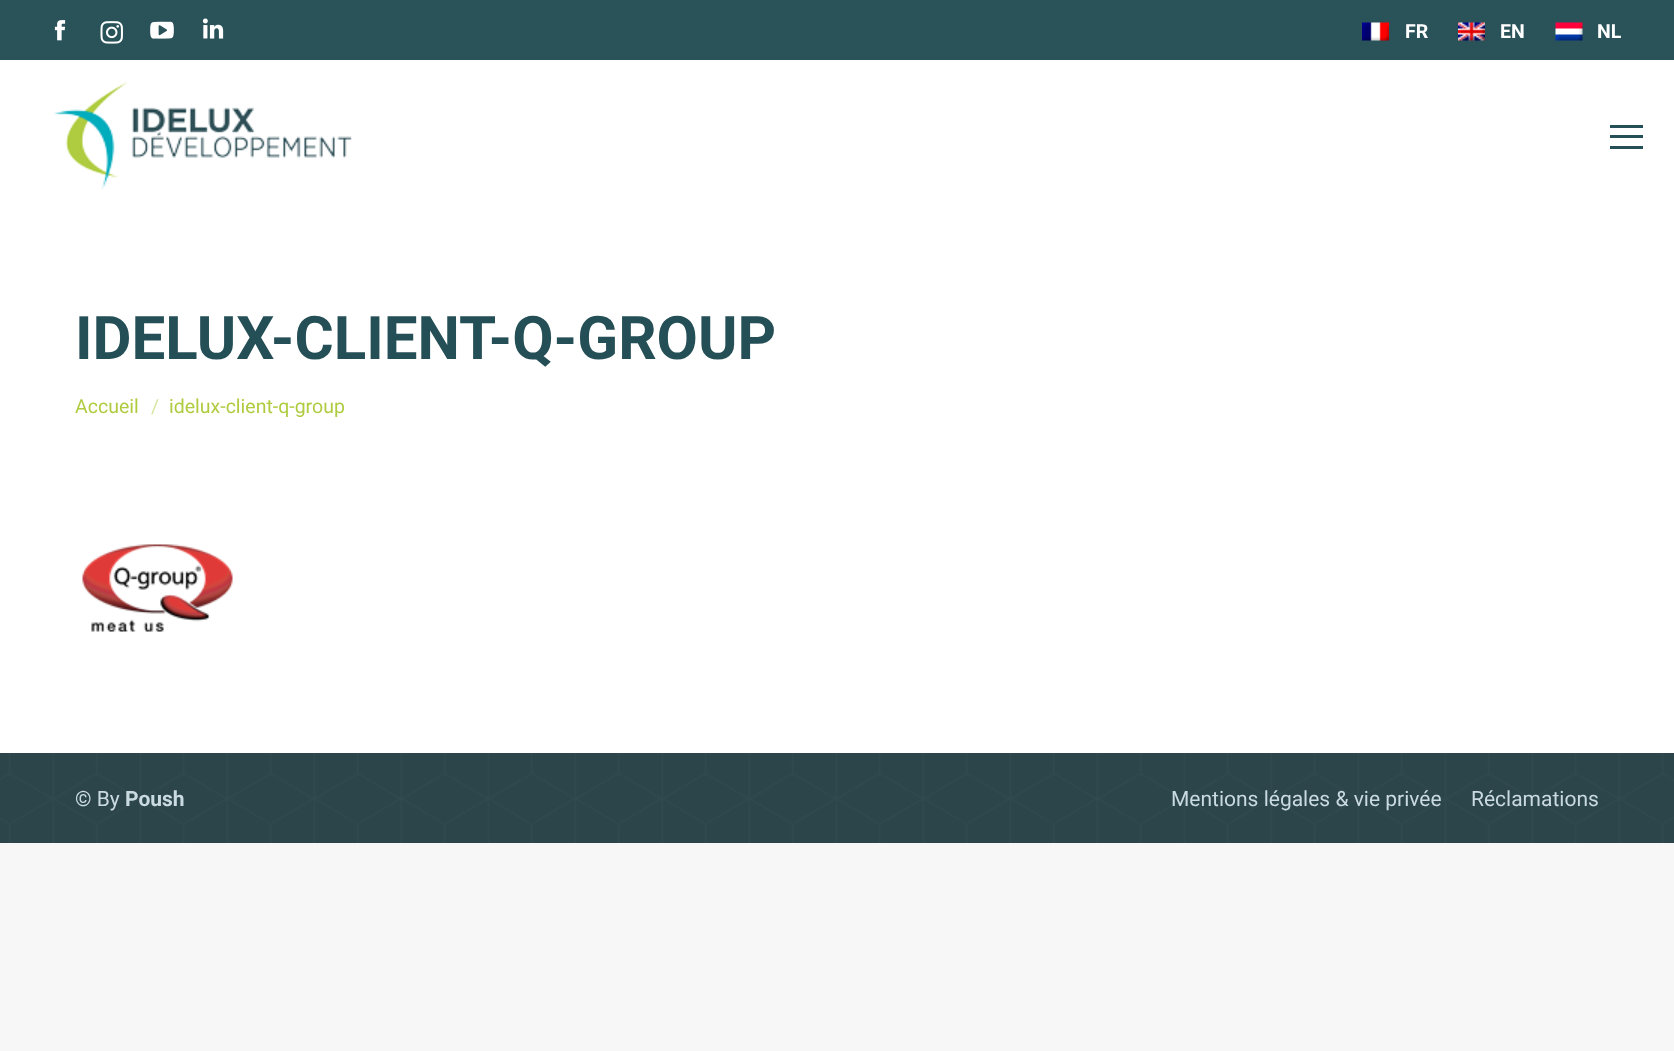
<!DOCTYPE html>
<meta charset="utf-8">
<style>body { margin: 0 } canvas { display: block }</style>
<canvas id="canvas" width="1674" height="1051"></canvas>
<script type="module">
  const canvas = document.getElementById("canvas");
  const ctx = canvas.getContext("2d");
  ctx.miterLimit = 4;
  ctx.fontKerning = "normal";
  async function loadImage(src) {
    const img = new Image();
    img.src = src;
    await img.decode();
    return img;
  }

  ctx.fillStyle = "#f7f7f7";
  ctx.fillRect(0, 0, 1674, 1051);
  ctx.fillStyle = "#ffffff";
  ctx.fillRect(0, 60, 1674, 693);
  ctx.fillStyle = "#295259";
  ctx.fillRect(0, 0, 1674, 60);
  ctx.drawImage(await loadImage("img1.png"), 54, 20, 12, 21);
  ctx.drawImage(await loadImage("img2.png"), 100, 21, 23, 23);
  ctx.drawImage(await loadImage("img3.png"), 150, 21, 24, 18);
  ctx.drawImage(await loadImage("img4.png"), 202, 18, 22, 21);
  ctx.drawImage(await loadImage("img5.png"), 1362, 22, 27, 19);
  ctx.font = "bold 19.5px Roboto";
  ctx.fillStyle = "#ffffff";
  ctx.fillText("FR", 1405, 38);
  ctx.drawImage(await loadImage("img6.png"), 1458, 22, 27, 19);
  ctx.fillText("EN", 1500, 38);
  ctx.drawImage(await loadImage("img7.png"), 1555, 22, 28, 19);
  ctx.fillText("NL", 1597, 38);
  ctx.drawImage(await loadImage("img8.png"), 53, 82, 299, 108);
  ctx.fillStyle = "#254f56";
  ctx.fillRect(1610, 125, 33, 3);
  ctx.fillRect(1610, 135, 33, 3);
  ctx.fillRect(1610, 146, 33, 3);
  ctx.font = "bold 60px Roboto";
  ctx.fillText("IDELUX-CLIENT-Q-GROUP", 75, 359);
  ctx.font = "19.5px Roboto";
  ctx.fillStyle = "#afcc40";
  ctx.fillText("Accueil", 75, 413);
  ctx.fillStyle = "#d7e6a0";
  ctx.fillText("/", 151, 413);
  ctx.fillStyle = "#afcc40";
  ctx.fillText("idelux-client-q-group", 169, 413);
  ctx.drawImage(await loadImage("img9.png"), 82, 544, 151, 88);
  ctx.fillStyle = "#2b454b";
  ctx.fillRect(0, 753, 1674, 90);
  ctx.drawImage(await loadImage("img10.png"), 0, 753, 1674, 90);
  ctx.font = "21px Roboto";
  ctx.fillStyle = "#c9dae0";
  ctx.fillText("© By", 75, 806);
  ctx.font = "bold 21px Roboto";
  ctx.fillText("Poush", 125, 806);
  ctx.font = "21px Roboto";
  ctx.fillText("Mentions légales & vie privée", 1171, 806);
  ctx.fillText("Réclamations", 1471, 806);
</script>
